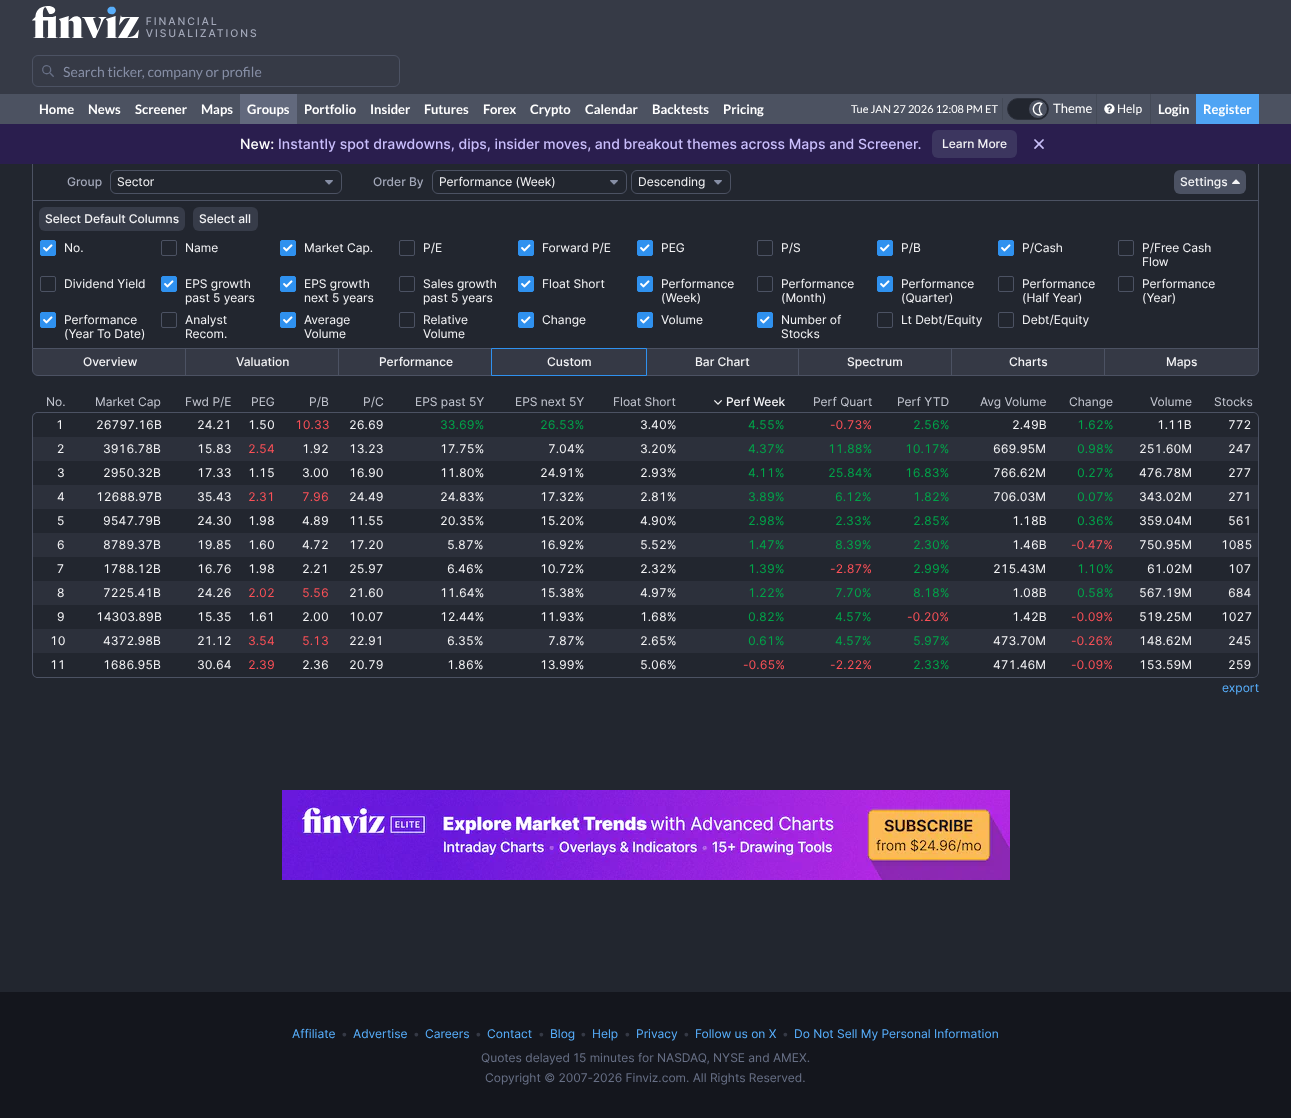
<!DOCTYPE html>
<meta charset="utf-8">
<style>body { margin: 0 } canvas { display: block }</style>
<canvas id="canvas" width="1291" height="1118"></canvas>
<script type="module">
  const canvas = document.getElementById("canvas");
  const ctx = canvas.getContext("2d");
  ctx.miterLimit = 4;
  ctx.fontKerning = "normal";
  async function loadImage(src) {
    const img = new Image();
    img.src = src;
    await img.decode();
    return img;
  }

  ctx.fillStyle = "#22262f";
  ctx.fillRect(0, 0, 1291, 1118);
  ctx.fillStyle = "#363a46";
  ctx.fillRect(0, 0, 1291, 94);
  ctx.drawImage(await loadImage("img1.png"), 32, 6, 225, 32);
  ctx.beginPath();
  ctx.roundRect(32.5, 55.5, 367, 31, 5.5);
  ctx.strokeStyle = "#4c5263";
  ctx.stroke();
  ctx.drawImage(await loadImage("img2.png"), 42, 65, 12, 12);
  ctx.font = "14px Lato";
  ctx.fillStyle = "#868ea5";
  ctx.fillText("Search ticker, company or profile", 63, 77);
  ctx.fillStyle = "#4c5261";
  ctx.fillRect(0, 94, 1291, 30);
  ctx.font = "bold 13px Lato";
  ctx.fillStyle = "#ffffff";
  ctx.fillText("Home", 39, 114);
  ctx.fillText("News", 88, 114);
  ctx.fillText("Screener", 135, 114);
  ctx.fillText("Maps", 201, 114);
  ctx.fillStyle = "#62697d";
  ctx.fillRect(240, 94, 57, 30);
  ctx.fillStyle = "#ffffff";
  ctx.fillText("Groups", 247, 114);
  ctx.fillText("Portfolio", 304, 114);
  ctx.fillText("Insider", 370, 114);
  ctx.fillText("Futures", 424, 114);
  ctx.fillText("Forex", 483, 114);
  ctx.fillText("Crypto", 530, 114);
  ctx.fillText("Calendar", 585, 114);
  ctx.fillText("Backtests", 652, 114);
  ctx.fillText("Pricing", 723, 114);
  ctx.font = "11px Lato";
  ctx.fillText("Tue JAN 27 2026 12:08 PM ET", 851, 113);
  ctx.fillStyle = "#444a57";
  ctx.fillRect(1002, 98, 1, 22);
  ctx.fillStyle = "#22262f";
  ctx.beginPath();
  ctx.roundRect(1007.5, 98.5, 41, 21, 10.5);
  ctx.fill();
  ctx.strokeStyle = "#2c303b";
  ctx.stroke();
  ctx.fillStyle = "#4c5261";
  ctx.beginPath();
  ctx.arc(1038, 109, 9.5, 0, Math.PI * 2);
  ctx.fill();
  ctx.strokeStyle = "#22262f";
  ctx.stroke();
  ctx.drawImage(await loadImage("img3.png"), 1032, 102, 11, 14);
  ctx.font = "13px Lato";
  ctx.fillStyle = "#ffffff";
  ctx.fillText("Theme", 1053, 113);
  ctx.fillStyle = "#444a57";
  ctx.fillRect(1096, 94, 1, 30);
  ctx.drawImage(await loadImage("img4.png"), 1104, 103, 11, 11);
  ctx.font = "12px Lato";
  ctx.fillStyle = "#ffffff";
  ctx.fillText("Help", 1117, 113);
  ctx.fillStyle = "#444a57";
  ctx.fillRect(1150, 94, 1, 30);
  ctx.font = "bold 13px Lato";
  ctx.fillStyle = "#ffffff";
  ctx.fillText("Login", 1158, 114);
  ctx.fillStyle = "#4fa4f4";
  ctx.fillRect(1196, 94, 63, 30);
  ctx.fillStyle = "#ffffff";
  ctx.fillText("Register", 1203, 114);
  ctx.fillStyle = "#2a1e4e";
  ctx.fillRect(0, 124, 1291, 40);
  ctx.font = "500 14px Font";
  ctx.fillStyle = "#ffffff";
  ctx.fillText("New:", 240, 149);
  ctx.fillStyle = "#c9befc";
  ctx.fillText("Instantly spot drawdowns, dips, insider moves, and breakout themes across Maps and Screener.", 278, 149);
  ctx.fillStyle = "#3c365f";
  ctx.beginPath();
  ctx.roundRect(932, 130, 85, 28, 6);
  ctx.fill();
  ctx.font = "500 12px Font";
  ctx.fillStyle = "#f3f3f5";
  ctx.fillText("Learn More", 942, 148);
  ctx.drawImage(await loadImage("img5.png"), 1034, 139, 10, 10);
  ctx.fillStyle = "#4c5263";
  ctx.fillRect(1258, 164, 1, 36);
  ctx.fillRect(32, 164, 1, 36);
  ctx.fillStyle = "#a3a8b9";
  ctx.fillText("Group", 67, 186);
  ctx.drawImage(await loadImage("img6.png"), 325, 180, 8, 5);
  ctx.beginPath();
  ctx.roundRect(110.5, 170.5, 231, 23, 5.5);
  ctx.strokeStyle = "#4c5263";
  ctx.stroke();
  ctx.font = "12px Font";
  ctx.fillStyle = "#f3f3f5";
  ctx.fillText("Sector", 117, 186);
  ctx.font = "500 12px Font";
  ctx.fillStyle = "#a3a8b9";
  ctx.fillText("Order By", 373, 186);
  ctx.drawImage(await loadImage("img6.png"), 610, 180, 8, 5);
  ctx.beginPath();
  ctx.roundRect(432.5, 170.5, 194, 23, 5.5);
  ctx.stroke();
  ctx.font = "12px Font";
  ctx.fillStyle = "#f3f3f5";
  ctx.fillText("Performance (Week)", 439, 186);
  ctx.drawImage(await loadImage("img6.png"), 714, 180, 8, 5);
  ctx.beginPath();
  ctx.roundRect(631.5, 170.5, 99, 23, 5.5);
  ctx.stroke();
  ctx.fillText("Descending", 638, 186);
  ctx.fillStyle = "#4c5263";
  ctx.beginPath();
  ctx.roundRect(1174, 170, 72, 24, 6);
  ctx.fill();
  ctx.font = "500 12px Font";
  ctx.fillStyle = "#f3f3f5";
  ctx.fillText("Settings", 1180, 186);
  ctx.drawImage(await loadImage("img7.png"), 1232, 179, 8, 5);
  ctx.fillStyle = "#4c5263";
  ctx.fillRect(32, 200, 1227, 1);
  ctx.fillRect(1258, 200, 1, 148);
  ctx.fillRect(32, 200, 1, 148);
  ctx.fillStyle = "#373c49";
  ctx.beginPath();
  ctx.roundRect(39, 207, 146, 24, 6);
  ctx.fill();
  ctx.fillStyle = "#f3f3f5";
  ctx.fillText("Select Default Columns", 45, 223);
  ctx.fillStyle = "#373c49";
  ctx.beginPath();
  ctx.roundRect(193, 207, 65, 24, 6);
  ctx.fill();
  ctx.fillStyle = "#f3f3f5";
  ctx.fillText("Select all", 199, 223);
  ctx.fillStyle = "#2f91ef";
  ctx.beginPath();
  ctx.roundRect(40.5, 240.5, 15, 15, 1.5);
  ctx.fill();
  ctx.strokeStyle = "#2f91ef";
  ctx.stroke();
  ctx.drawImage(await loadImage("img8.png"), 43, 244, 10, 8);
  ctx.font = "12px Font";
  ctx.fillStyle = "#f3f3f5";
  ctx.fillText("No.", 64, 252);
  ctx.beginPath();
  ctx.roundRect(161.5, 240.5, 15, 15, 1.5);
  ctx.strokeStyle = "#4c5263";
  ctx.stroke();
  ctx.fillText("Name", 185, 252);
  ctx.fillStyle = "#2f91ef";
  ctx.beginPath();
  ctx.roundRect(280.5, 240.5, 15, 15, 1.5);
  ctx.fill();
  ctx.strokeStyle = "#2f91ef";
  ctx.stroke();
  ctx.drawImage(await loadImage("img8.png"), 283, 244, 10, 8);
  ctx.fillStyle = "#f3f3f5";
  ctx.fillText("Market Cap.", 304, 252);
  ctx.beginPath();
  ctx.roundRect(399.5, 240.5, 15, 15, 1.5);
  ctx.strokeStyle = "#4c5263";
  ctx.stroke();
  ctx.fillText("P/E", 423, 252);
  ctx.fillStyle = "#2f91ef";
  ctx.beginPath();
  ctx.roundRect(518.5, 240.5, 15, 15, 1.5);
  ctx.fill();
  ctx.strokeStyle = "#2f91ef";
  ctx.stroke();
  ctx.drawImage(await loadImage("img8.png"), 521, 244, 10, 8);
  ctx.fillStyle = "#f3f3f5";
  ctx.fillText("Forward P/E", 542, 252);
  ctx.fillStyle = "#2f91ef";
  ctx.beginPath();
  ctx.roundRect(637.5, 240.5, 15, 15, 1.5);
  ctx.fill();
  ctx.stroke();
  ctx.drawImage(await loadImage("img8.png"), 640, 244, 10, 8);
  ctx.fillStyle = "#f3f3f5";
  ctx.fillText("PEG", 661, 252);
  ctx.beginPath();
  ctx.roundRect(757.5, 240.5, 15, 15, 1.5);
  ctx.strokeStyle = "#4c5263";
  ctx.stroke();
  ctx.fillText("P/S", 781, 252);
  ctx.fillStyle = "#2f91ef";
  ctx.beginPath();
  ctx.roundRect(877.5, 240.5, 15, 15, 1.5);
  ctx.fill();
  ctx.strokeStyle = "#2f91ef";
  ctx.stroke();
  ctx.drawImage(await loadImage("img8.png"), 880, 244, 10, 8);
  ctx.fillStyle = "#f3f3f5";
  ctx.fillText("P/B", 901, 252);
  ctx.fillStyle = "#2f91ef";
  ctx.beginPath();
  ctx.roundRect(998.5, 240.5, 15, 15, 1.5);
  ctx.fill();
  ctx.stroke();
  ctx.drawImage(await loadImage("img8.png"), 1001, 244, 10, 8);
  ctx.fillStyle = "#f3f3f5";
  ctx.fillText("P/Cash", 1022, 252);
  ctx.beginPath();
  ctx.roundRect(1118.5, 240.5, 15, 15, 1.5);
  ctx.strokeStyle = "#4c5263";
  ctx.stroke();
  ctx.fillText("P/Free Cash", 1142, 252);
  ctx.fillText("Flow", 1142, 266);
  ctx.beginPath();
  ctx.roundRect(40.5, 276.5, 15, 15, 1.5);
  ctx.stroke();
  ctx.fillText("Dividend Yield", 64, 288);
  ctx.fillStyle = "#2f91ef";
  ctx.beginPath();
  ctx.roundRect(161.5, 276.5, 15, 15, 1.5);
  ctx.fill();
  ctx.strokeStyle = "#2f91ef";
  ctx.stroke();
  ctx.drawImage(await loadImage("img8.png"), 164, 280, 10, 8);
  ctx.fillStyle = "#f3f3f5";
  ctx.fillText("EPS growth", 185, 288);
  ctx.fillText("past 5 years", 185, 302);
  ctx.fillStyle = "#2f91ef";
  ctx.beginPath();
  ctx.roundRect(280.5, 276.5, 15, 15, 1.5);
  ctx.fill();
  ctx.stroke();
  ctx.drawImage(await loadImage("img8.png"), 283, 280, 10, 8);
  ctx.fillStyle = "#f3f3f5";
  ctx.fillText("EPS growth", 304, 288);
  ctx.fillText("next 5 years", 304, 302);
  ctx.beginPath();
  ctx.roundRect(399.5, 276.5, 15, 15, 1.5);
  ctx.strokeStyle = "#4c5263";
  ctx.stroke();
  ctx.fillText("Sales growth", 423, 288);
  ctx.fillText("past 5 years", 423, 302);
  ctx.fillStyle = "#2f91ef";
  ctx.beginPath();
  ctx.roundRect(518.5, 276.5, 15, 15, 1.5);
  ctx.fill();
  ctx.strokeStyle = "#2f91ef";
  ctx.stroke();
  ctx.drawImage(await loadImage("img8.png"), 521, 280, 10, 8);
  ctx.fillStyle = "#f3f3f5";
  ctx.fillText("Float Short", 542, 288);
  ctx.fillStyle = "#2f91ef";
  ctx.beginPath();
  ctx.roundRect(637.5, 276.5, 15, 15, 1.5);
  ctx.fill();
  ctx.stroke();
  ctx.drawImage(await loadImage("img8.png"), 640, 280, 10, 8);
  ctx.fillStyle = "#f3f3f5";
  ctx.fillText("Performance", 661, 288);
  ctx.fillText("(Week)", 661, 302);
  ctx.beginPath();
  ctx.roundRect(757.5, 276.5, 15, 15, 1.5);
  ctx.strokeStyle = "#4c5263";
  ctx.stroke();
  ctx.fillText("Performance", 781, 288);
  ctx.fillText("(Month)", 781, 302);
  ctx.fillStyle = "#2f91ef";
  ctx.beginPath();
  ctx.roundRect(877.5, 276.5, 15, 15, 1.5);
  ctx.fill();
  ctx.strokeStyle = "#2f91ef";
  ctx.stroke();
  ctx.drawImage(await loadImage("img8.png"), 880, 280, 10, 8);
  ctx.fillStyle = "#f3f3f5";
  ctx.fillText("Performance", 901, 288);
  ctx.fillText("(Quarter)", 901, 302);
  ctx.beginPath();
  ctx.roundRect(998.5, 276.5, 15, 15, 1.5);
  ctx.strokeStyle = "#4c5263";
  ctx.stroke();
  ctx.fillText("Performance", 1022, 288);
  ctx.fillText("(Half Year)", 1022, 302);
  ctx.beginPath();
  ctx.roundRect(1118.5, 276.5, 15, 15, 1.5);
  ctx.stroke();
  ctx.fillText("Performance", 1142, 288);
  ctx.fillText("(Year)", 1142, 302);
  ctx.fillStyle = "#2f91ef";
  ctx.beginPath();
  ctx.roundRect(40.5, 312.5, 15, 15, 1.5);
  ctx.fill();
  ctx.strokeStyle = "#2f91ef";
  ctx.stroke();
  ctx.drawImage(await loadImage("img8.png"), 43, 316, 10, 8);
  ctx.fillStyle = "#f3f3f5";
  ctx.fillText("Performance", 64, 324);
  ctx.fillText("(Year To Date)", 64, 338);
  ctx.beginPath();
  ctx.roundRect(161.5, 312.5, 15, 15, 1.5);
  ctx.strokeStyle = "#4c5263";
  ctx.stroke();
  ctx.fillText("Analyst", 185, 324);
  ctx.fillText("Recom.", 185, 338);
  ctx.fillStyle = "#2f91ef";
  ctx.beginPath();
  ctx.roundRect(280.5, 312.5, 15, 15, 1.5);
  ctx.fill();
  ctx.strokeStyle = "#2f91ef";
  ctx.stroke();
  ctx.drawImage(await loadImage("img8.png"), 283, 316, 10, 8);
  ctx.fillStyle = "#f3f3f5";
  ctx.fillText("Average", 304, 324);
  ctx.fillText("Volume", 304, 338);
  ctx.beginPath();
  ctx.roundRect(399.5, 312.5, 15, 15, 1.5);
  ctx.strokeStyle = "#4c5263";
  ctx.stroke();
  ctx.fillText("Relative", 423, 324);
  ctx.fillText("Volume", 423, 338);
  ctx.fillStyle = "#2f91ef";
  ctx.beginPath();
  ctx.roundRect(518.5, 312.5, 15, 15, 1.5);
  ctx.fill();
  ctx.strokeStyle = "#2f91ef";
  ctx.stroke();
  ctx.drawImage(await loadImage("img8.png"), 521, 316, 10, 8);
  ctx.fillStyle = "#f3f3f5";
  ctx.fillText("Change", 542, 324);
  ctx.fillStyle = "#2f91ef";
  ctx.beginPath();
  ctx.roundRect(637.5, 312.5, 15, 15, 1.5);
  ctx.fill();
  ctx.stroke();
  ctx.drawImage(await loadImage("img8.png"), 640, 316, 10, 8);
  ctx.fillStyle = "#f3f3f5";
  ctx.fillText("Volume", 661, 324);
  ctx.fillStyle = "#2f91ef";
  ctx.beginPath();
  ctx.roundRect(757.5, 312.5, 15, 15, 1.5);
  ctx.fill();
  ctx.stroke();
  ctx.drawImage(await loadImage("img8.png"), 760, 316, 10, 8);
  ctx.fillStyle = "#f3f3f5";
  ctx.fillText("Number of", 781, 324);
  ctx.fillText("Stocks", 781, 338);
  ctx.beginPath();
  ctx.roundRect(877.5, 312.5, 15, 15, 1.5);
  ctx.strokeStyle = "#4c5263";
  ctx.stroke();
  ctx.fillText("Lt Debt/Equity", 901, 324);
  ctx.beginPath();
  ctx.roundRect(998.5, 312.5, 15, 15, 1.5);
  ctx.stroke();
  ctx.fillText("Debt/Equity", 1022, 324);
  ctx.fillStyle = "#353945";
  ctx.beginPath();
  ctx.roundRect(32.5, 348.5, 154, 27, [0, 0, 0, 5.5]);
  ctx.fill();
  ctx.stroke();
  ctx.font = "500 12px Font";
  ctx.fillStyle = "#f3f3f5";
  ctx.fillText("Overview", 83, 366);
  ctx.fillStyle = "#353945";
  ctx.fillRect(186, 349, 152, 26);
  ctx.strokeRect(185.5, 348.5, 154, 27);
  ctx.fillStyle = "#f3f3f5";
  ctx.fillText("Valuation", 236, 366);
  ctx.fillStyle = "#353945";
  ctx.fillRect(339, 349, 152, 26);
  ctx.strokeRect(338.5, 348.5, 154, 27);
  ctx.fillStyle = "#f3f3f5";
  ctx.fillText("Performance", 379, 366);
  ctx.fillStyle = "#353945";
  ctx.fillRect(647, 349, 151, 26);
  ctx.strokeRect(645.5, 348.5, 154, 27);
  ctx.beginPath();
  ctx.rect(491.5, 348.5, 155, 27);
  ctx.fill();
  ctx.strokeStyle = "#2f91ef";
  ctx.stroke();
  ctx.fillStyle = "#f3f3f5";
  ctx.fillText("Custom", 547, 366);
  ctx.fillText("Bar Chart", 695, 366);
  ctx.fillStyle = "#353945";
  ctx.fillRect(799, 349, 152, 26);
  ctx.strokeStyle = "#4c5263";
  ctx.strokeRect(798.5, 348.5, 154, 27);
  ctx.fillStyle = "#f3f3f5";
  ctx.fillText("Spectrum", 847, 366);
  ctx.fillStyle = "#353945";
  ctx.fillRect(952, 349, 152, 26);
  ctx.strokeRect(951.5, 348.5, 154, 27);
  ctx.fillStyle = "#f3f3f5";
  ctx.fillText("Charts", 1009, 366);
  ctx.fillStyle = "#353945";
  ctx.beginPath();
  ctx.roundRect(1104.5, 348.5, 154, 27, [0, 0, 5.5, 0]);
  ctx.fill();
  ctx.stroke();
  ctx.fillStyle = "#f3f3f5";
  ctx.fillText("Maps", 1166, 366);
  ctx.font = "12px Font";
  ctx.fillStyle = "#c3c6d0";
  ctx.fillText("No.", 46, 406);
  ctx.fillText("Market Cap", 95, 406);
  ctx.fillText("Fwd P/E", 185, 406);
  ctx.fillText("PEG", 251, 406);
  ctx.fillText("P/B", 309, 406);
  ctx.fillText("P/C", 363, 406);
  ctx.fillText("EPS past 5Y", 415, 406);
  ctx.fillText("EPS next 5Y", 515, 406);
  ctx.fillText("Float Short", 613, 406);
  ctx.drawImage(await loadImage("img9.png"), 714, 400, 8, 5);
  ctx.font = "500 12px Font";
  ctx.fillStyle = "#f3f3f5";
  ctx.fillText("Perf Week", 726, 406);
  ctx.font = "12px Font";
  ctx.fillStyle = "#c3c6d0";
  ctx.fillText("Perf Quart", 813, 406);
  ctx.fillText("Perf YTD", 897, 406);
  ctx.fillText("Avg Volume", 980, 406);
  ctx.fillText("Change", 1069, 406);
  ctx.fillText("Volume", 1150, 406);
  ctx.fillText("Stocks", 1214, 406);
  ctx.fillStyle = "#4c5263";
  ctx.beginPath();
  ctx.moveTo(38, 412);
  ctx.lineTo(68, 412);
  ctx.lineTo(68, 437);
  ctx.lineTo(32, 437);
  ctx.lineTo(32, 418);
  ctx.bezierCurveTo(32, 414.5, 34.5, 412, 38, 412);
  ctx.closePath();
  ctx.moveTo(38, 413);
  ctx.lineTo(68, 413);
  ctx.lineTo(68, 437);
  ctx.lineTo(33, 437);
  ctx.lineTo(33, 418);
  ctx.bezierCurveTo(33, 415, 35, 413, 38, 413);
  ctx.closePath();
  ctx.fill("evenodd");
  ctx.fillStyle = "#f3f3f5";
  ctx.fillText("1", 57, 429);
  ctx.fillStyle = "#4c5263";
  ctx.fillRect(68, 412, 1127, 1);
  ctx.font = "12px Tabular";
  ctx.fillStyle = "#f3f3f5";
  ctx.fillText("26797.16B", 96, 429);
  ctx.fillText("24.21", 197, 429);
  ctx.fillText("1.50", 248, 429);
  ctx.fillStyle = "#fb5057";
  ctx.fillText("10.33", 295, 429);
  ctx.fillStyle = "#f3f3f5";
  ctx.fillText("26.69", 349, 429);
  ctx.fillStyle = "#00a449";
  ctx.fillText("33.69%", 440, 429);
  ctx.fillText("26.53%", 540, 429);
  ctx.fillStyle = "#f3f3f5";
  ctx.fillText("3.40%", 640, 429);
  ctx.fillStyle = "#00a449";
  ctx.fillText("4.55%", 748, 429);
  ctx.fillStyle = "#fb5057";
  ctx.fillText("-0.73%", 830, 429);
  ctx.fillStyle = "#00a449";
  ctx.fillText("2.56%", 913, 429);
  ctx.fillStyle = "#f3f3f5";
  ctx.fillText("2.49B", 1012, 429);
  ctx.fillStyle = "#00a449";
  ctx.fillText("1.62%", 1077, 429);
  ctx.fillStyle = "#f3f3f5";
  ctx.fillText("1.11B", 1157, 429);
  ctx.fillStyle = "#4c5263";
  ctx.beginPath();
  ctx.moveTo(1195, 412);
  ctx.lineTo(1253, 412);
  ctx.bezierCurveTo(1256, 412, 1259, 415, 1259, 418);
  ctx.lineTo(1259, 437);
  ctx.lineTo(1195, 437);
  ctx.closePath();
  ctx.moveTo(1195, 413);
  ctx.lineTo(1253, 413);
  ctx.bezierCurveTo(1256, 413, 1258, 415, 1258, 418);
  ctx.lineTo(1258, 437);
  ctx.lineTo(1195, 437);
  ctx.closePath();
  ctx.fill("evenodd");
  ctx.fillStyle = "#f3f3f5";
  ctx.fillText("772", 1228, 429);
  ctx.fillStyle = "#2c303b";
  ctx.fillRect(33, 437, 1225, 24);
  ctx.fillStyle = "#4c5263";
  ctx.fillRect(32, 437, 1, 216);
  ctx.font = "12px Font";
  ctx.fillStyle = "#f3f3f5";
  ctx.fillText("2", 57, 453);
  ctx.font = "12px Tabular";
  ctx.fillText("3916.78B", 103, 453);
  ctx.fillText("15.83", 197, 453);
  ctx.fillStyle = "#fb5057";
  ctx.fillText("2.54", 248, 453);
  ctx.fillStyle = "#f3f3f5";
  ctx.fillText("1.92", 302, 453);
  ctx.fillText("13.23", 349, 453);
  ctx.fillText("17.75%", 440, 453);
  ctx.fillText("7.04%", 548, 453);
  ctx.fillText("3.20%", 640, 453);
  ctx.fillStyle = "#00a449";
  ctx.fillText("4.37%", 748, 453);
  ctx.fillText("11.88%", 828, 453);
  ctx.fillText("10.17%", 905, 453);
  ctx.fillStyle = "#f3f3f5";
  ctx.fillText("669.95M", 993, 453);
  ctx.fillStyle = "#00a449";
  ctx.fillText("0.98%", 1077, 453);
  ctx.fillStyle = "#f3f3f5";
  ctx.fillText("251.60M", 1139, 453);
  ctx.fillStyle = "#4c5263";
  ctx.fillRect(1258, 437, 1, 216);
  ctx.fillStyle = "#f3f3f5";
  ctx.fillText("247", 1228, 453);
  ctx.font = "12px Font";
  ctx.fillText("3", 57, 477);
  ctx.font = "12px Tabular";
  ctx.fillText("2950.32B", 103, 477);
  ctx.fillText("17.33", 197, 477);
  ctx.fillText("1.15", 248, 477);
  ctx.fillText("3.00", 302, 477);
  ctx.fillText("16.90", 349, 477);
  ctx.fillText("11.80%", 440, 477);
  ctx.fillText("24.91%", 540, 477);
  ctx.fillText("2.93%", 640, 477);
  ctx.fillStyle = "#00a449";
  ctx.fillText("4.11%", 748, 477);
  ctx.fillText("25.84%", 828, 477);
  ctx.fillText("16.83%", 905, 477);
  ctx.fillStyle = "#f3f3f5";
  ctx.fillText("766.62M", 993, 477);
  ctx.fillStyle = "#00a449";
  ctx.fillText("0.27%", 1077, 477);
  ctx.fillStyle = "#f3f3f5";
  ctx.fillText("476.78M", 1139, 477);
  ctx.fillText("277", 1228, 477);
  ctx.fillStyle = "#2c303b";
  ctx.fillRect(33, 485, 1225, 24);
  ctx.font = "12px Font";
  ctx.fillStyle = "#f3f3f5";
  ctx.fillText("4", 57, 501);
  ctx.font = "12px Tabular";
  ctx.fillText("12688.97B", 96, 501);
  ctx.fillText("35.43", 197, 501);
  ctx.fillStyle = "#fb5057";
  ctx.fillText("2.31", 248, 501);
  ctx.fillText("7.96", 302, 501);
  ctx.fillStyle = "#f3f3f5";
  ctx.fillText("24.49", 349, 501);
  ctx.fillText("24.83%", 440, 501);
  ctx.fillText("17.32%", 540, 501);
  ctx.fillText("2.81%", 640, 501);
  ctx.fillStyle = "#00a449";
  ctx.fillText("3.89%", 748, 501);
  ctx.fillText("6.12%", 835, 501);
  ctx.fillText("1.82%", 913, 501);
  ctx.fillStyle = "#f3f3f5";
  ctx.fillText("706.03M", 993, 501);
  ctx.fillStyle = "#00a449";
  ctx.fillText("0.07%", 1077, 501);
  ctx.fillStyle = "#f3f3f5";
  ctx.fillText("343.02M", 1139, 501);
  ctx.fillText("271", 1228, 501);
  ctx.font = "12px Font";
  ctx.fillText("5", 57, 525);
  ctx.font = "12px Tabular";
  ctx.fillText("9547.79B", 103, 525);
  ctx.fillText("24.30", 197, 525);
  ctx.fillText("1.98", 248, 525);
  ctx.fillText("4.89", 302, 525);
  ctx.fillText("11.55", 349, 525);
  ctx.fillText("20.35%", 440, 525);
  ctx.fillText("15.20%", 540, 525);
  ctx.fillText("4.90%", 640, 525);
  ctx.fillStyle = "#00a449";
  ctx.fillText("2.98%", 748, 525);
  ctx.fillText("2.33%", 835, 525);
  ctx.fillText("2.85%", 913, 525);
  ctx.fillStyle = "#f3f3f5";
  ctx.fillText("1.18B", 1012, 525);
  ctx.fillStyle = "#00a449";
  ctx.fillText("0.36%", 1077, 525);
  ctx.fillStyle = "#f3f3f5";
  ctx.fillText("359.04M", 1139, 525);
  ctx.fillText("561", 1228, 525);
  ctx.fillStyle = "#2c303b";
  ctx.fillRect(33, 533, 1225, 24);
  ctx.font = "12px Font";
  ctx.fillStyle = "#f3f3f5";
  ctx.fillText("6", 57, 549);
  ctx.font = "12px Tabular";
  ctx.fillText("8789.37B", 103, 549);
  ctx.fillText("19.85", 197, 549);
  ctx.fillText("1.60", 248, 549);
  ctx.fillText("4.72", 302, 549);
  ctx.fillText("17.20", 349, 549);
  ctx.fillText("5.87%", 447, 549);
  ctx.fillText("16.92%", 540, 549);
  ctx.fillText("5.52%", 640, 549);
  ctx.fillStyle = "#00a449";
  ctx.fillText("1.47%", 748, 549);
  ctx.fillText("8.39%", 835, 549);
  ctx.fillText("2.30%", 913, 549);
  ctx.fillStyle = "#f3f3f5";
  ctx.fillText("1.46B", 1012, 549);
  ctx.fillStyle = "#fb5057";
  ctx.fillText("-0.47%", 1071, 549);
  ctx.fillStyle = "#f3f3f5";
  ctx.fillText("750.95M", 1139, 549);
  ctx.fillText("1085", 1221, 549);
  ctx.font = "12px Font";
  ctx.fillText("7", 57, 573);
  ctx.font = "12px Tabular";
  ctx.fillText("1788.12B", 103, 573);
  ctx.fillText("16.76", 197, 573);
  ctx.fillText("1.98", 248, 573);
  ctx.fillText("2.21", 302, 573);
  ctx.fillText("25.97", 349, 573);
  ctx.fillText("6.46%", 447, 573);
  ctx.fillText("10.72%", 540, 573);
  ctx.fillText("2.32%", 640, 573);
  ctx.fillStyle = "#00a449";
  ctx.fillText("1.39%", 748, 573);
  ctx.fillStyle = "#fb5057";
  ctx.fillText("-2.87%", 830, 573);
  ctx.fillStyle = "#00a449";
  ctx.fillText("2.99%", 913, 573);
  ctx.fillStyle = "#f3f3f5";
  ctx.fillText("215.43M", 993, 573);
  ctx.fillStyle = "#00a449";
  ctx.fillText("1.10%", 1077, 573);
  ctx.fillStyle = "#f3f3f5";
  ctx.fillText("61.02M", 1147, 573);
  ctx.fillText("107", 1228, 573);
  ctx.fillStyle = "#2c303b";
  ctx.fillRect(33, 581, 1225, 24);
  ctx.font = "12px Font";
  ctx.fillStyle = "#f3f3f5";
  ctx.fillText("8", 57, 597);
  ctx.font = "12px Tabular";
  ctx.fillText("7225.41B", 103, 597);
  ctx.fillText("24.26", 197, 597);
  ctx.fillStyle = "#fb5057";
  ctx.fillText("2.02", 248, 597);
  ctx.fillText("5.56", 302, 597);
  ctx.fillStyle = "#f3f3f5";
  ctx.fillText("21.60", 349, 597);
  ctx.fillText("11.64%", 440, 597);
  ctx.fillText("15.38%", 540, 597);
  ctx.fillText("4.97%", 640, 597);
  ctx.fillStyle = "#00a449";
  ctx.fillText("1.22%", 748, 597);
  ctx.fillText("7.70%", 835, 597);
  ctx.fillText("8.18%", 913, 597);
  ctx.fillStyle = "#f3f3f5";
  ctx.fillText("1.08B", 1012, 597);
  ctx.fillStyle = "#00a449";
  ctx.fillText("0.58%", 1077, 597);
  ctx.fillStyle = "#f3f3f5";
  ctx.fillText("567.19M", 1139, 597);
  ctx.fillText("684", 1228, 597);
  ctx.font = "12px Font";
  ctx.fillText("9", 57, 621);
  ctx.font = "12px Tabular";
  ctx.fillText("14303.89B", 96, 621);
  ctx.fillText("15.35", 197, 621);
  ctx.fillText("1.61", 248, 621);
  ctx.fillText("2.00", 302, 621);
  ctx.fillText("10.07", 349, 621);
  ctx.fillText("12.44%", 440, 621);
  ctx.fillText("11.93%", 540, 621);
  ctx.fillText("1.68%", 640, 621);
  ctx.fillStyle = "#00a449";
  ctx.fillText("0.82%", 748, 621);
  ctx.fillText("4.57%", 835, 621);
  ctx.fillStyle = "#fb5057";
  ctx.fillText("-0.20%", 907, 621);
  ctx.fillStyle = "#f3f3f5";
  ctx.fillText("1.42B", 1012, 621);
  ctx.fillStyle = "#fb5057";
  ctx.fillText("-0.09%", 1071, 621);
  ctx.fillStyle = "#f3f3f5";
  ctx.fillText("519.25M", 1139, 621);
  ctx.fillText("1027", 1221, 621);
  ctx.fillStyle = "#2c303b";
  ctx.fillRect(33, 629, 1225, 24);
  ctx.fillStyle = "#f3f3f5";
  ctx.fillText("10", 50, 645);
  ctx.fillText("4372.98B", 103, 645);
  ctx.fillText("21.12", 197, 645);
  ctx.fillStyle = "#fb5057";
  ctx.fillText("3.54", 248, 645);
  ctx.fillText("5.13", 302, 645);
  ctx.fillStyle = "#f3f3f5";
  ctx.fillText("22.91", 349, 645);
  ctx.fillText("6.35%", 447, 645);
  ctx.fillText("7.87%", 548, 645);
  ctx.fillText("2.65%", 640, 645);
  ctx.fillStyle = "#00a449";
  ctx.fillText("0.61%", 748, 645);
  ctx.fillText("4.57%", 835, 645);
  ctx.fillText("5.97%", 913, 645);
  ctx.fillStyle = "#f3f3f5";
  ctx.fillText("473.70M", 993, 645);
  ctx.fillStyle = "#fb5057";
  ctx.fillText("-0.26%", 1071, 645);
  ctx.fillStyle = "#f3f3f5";
  ctx.fillText("148.62M", 1139, 645);
  ctx.fillText("245", 1228, 645);
  ctx.fillStyle = "#4c5263";
  ctx.beginPath();
  ctx.moveTo(32, 653);
  ctx.lineTo(68, 653);
  ctx.lineTo(68, 678);
  ctx.lineTo(38, 678);
  ctx.bezierCurveTo(34.5, 678, 32, 675.5, 32, 672);
  ctx.closePath();
  ctx.moveTo(33, 653);
  ctx.lineTo(68, 653);
  ctx.lineTo(68, 677);
  ctx.lineTo(38, 677);
  ctx.bezierCurveTo(35, 677, 33, 675, 33, 672);
  ctx.closePath();
  ctx.fill("evenodd");
  ctx.fillStyle = "#f3f3f5";
  ctx.fillText("11", 50, 669);
  ctx.fillStyle = "#4c5263";
  ctx.fillRect(68, 677, 1127, 1);
  ctx.fillStyle = "#f3f3f5";
  ctx.fillText("1686.95B", 103, 669);
  ctx.fillText("30.64", 197, 669);
  ctx.fillStyle = "#fb5057";
  ctx.fillText("2.39", 248, 669);
  ctx.fillStyle = "#f3f3f5";
  ctx.fillText("2.36", 302, 669);
  ctx.fillText("20.79", 349, 669);
  ctx.fillText("1.86%", 447, 669);
  ctx.fillText("13.99%", 540, 669);
  ctx.fillText("5.06%", 640, 669);
  ctx.fillStyle = "#fb5057";
  ctx.fillText("-0.65%", 743, 669);
  ctx.fillText("-2.22%", 830, 669);
  ctx.fillStyle = "#00a449";
  ctx.fillText("2.33%", 913, 669);
  ctx.fillStyle = "#f3f3f5";
  ctx.fillText("471.46M", 993, 669);
  ctx.fillStyle = "#fb5057";
  ctx.fillText("-0.09%", 1071, 669);
  ctx.fillStyle = "#f3f3f5";
  ctx.fillText("153.59M", 1139, 669);
  ctx.fillStyle = "#4c5263";
  ctx.beginPath();
  ctx.moveTo(1195, 653);
  ctx.lineTo(1259, 653);
  ctx.lineTo(1259, 672);
  ctx.bezierCurveTo(1259, 675, 1256, 678, 1253, 678);
  ctx.lineTo(1195, 678);
  ctx.closePath();
  ctx.moveTo(1195, 653);
  ctx.lineTo(1258, 653);
  ctx.lineTo(1258, 672);
  ctx.bezierCurveTo(1258, 675, 1256, 677, 1253, 677);
  ctx.lineTo(1195, 677);
  ctx.closePath();
  ctx.fill("evenodd");
  ctx.fillStyle = "#f3f3f5";
  ctx.fillText("259", 1228, 669);
  ctx.font = "12px Font";
  ctx.fillStyle = "#57aefb";
  ctx.fillText("export", 1222, 692);
  ctx.drawImage(await loadImage("img10.png"), 282, 790, 728, 90);
  ctx.fillStyle = "#14161d";
  ctx.fillRect(0, 992, 1291, 126);
  ctx.fillStyle = "#57aefb";
  ctx.fillText("Affiliate", 292, 1038);
  ctx.fillStyle = "#353945";
  ctx.fillText("•", 341, 1038);
  ctx.fillStyle = "#57aefb";
  ctx.fillText("Advertise", 353, 1038);
  ctx.fillStyle = "#353945";
  ctx.fillText("•", 413, 1038);
  ctx.fillStyle = "#57aefb";
  ctx.fillText("Careers", 425, 1038);
  ctx.fillStyle = "#353945";
  ctx.fillText("•", 475, 1038);
  ctx.fillStyle = "#57aefb";
  ctx.fillText("Contact", 487, 1038);
  ctx.fillStyle = "#353945";
  ctx.fillText("•", 538, 1038);
  ctx.fillStyle = "#57aefb";
  ctx.fillText("Blog", 550, 1038);
  ctx.fillStyle = "#353945";
  ctx.fillText("•", 580, 1038);
  ctx.fillStyle = "#57aefb";
  ctx.fillText("Help", 592, 1038);
  ctx.fillStyle = "#353945";
  ctx.fillText("•", 624, 1038);
  ctx.fillStyle = "#57aefb";
  ctx.fillText("Privacy", 636, 1038);
  ctx.fillStyle = "#353945";
  ctx.fillText("•", 683, 1038);
  ctx.fillStyle = "#57aefb";
  ctx.fillText("Follow us on X", 695, 1038);
  ctx.fillStyle = "#353945";
  ctx.fillText("•", 782, 1038);
  ctx.fillStyle = "#57aefb";
  ctx.fillText("Do Not Sell My Personal Information", 794, 1038);
  ctx.fillStyle = "#676f85";
  ctx.fillText("Quotes delayed 15 minutes for NASDAQ, NYSE and AMEX.", 481, 1062);
  ctx.fillText("Copyright © 2007-2026 Finviz.com. All Rights Reserved.", 485, 1082);
</script>
